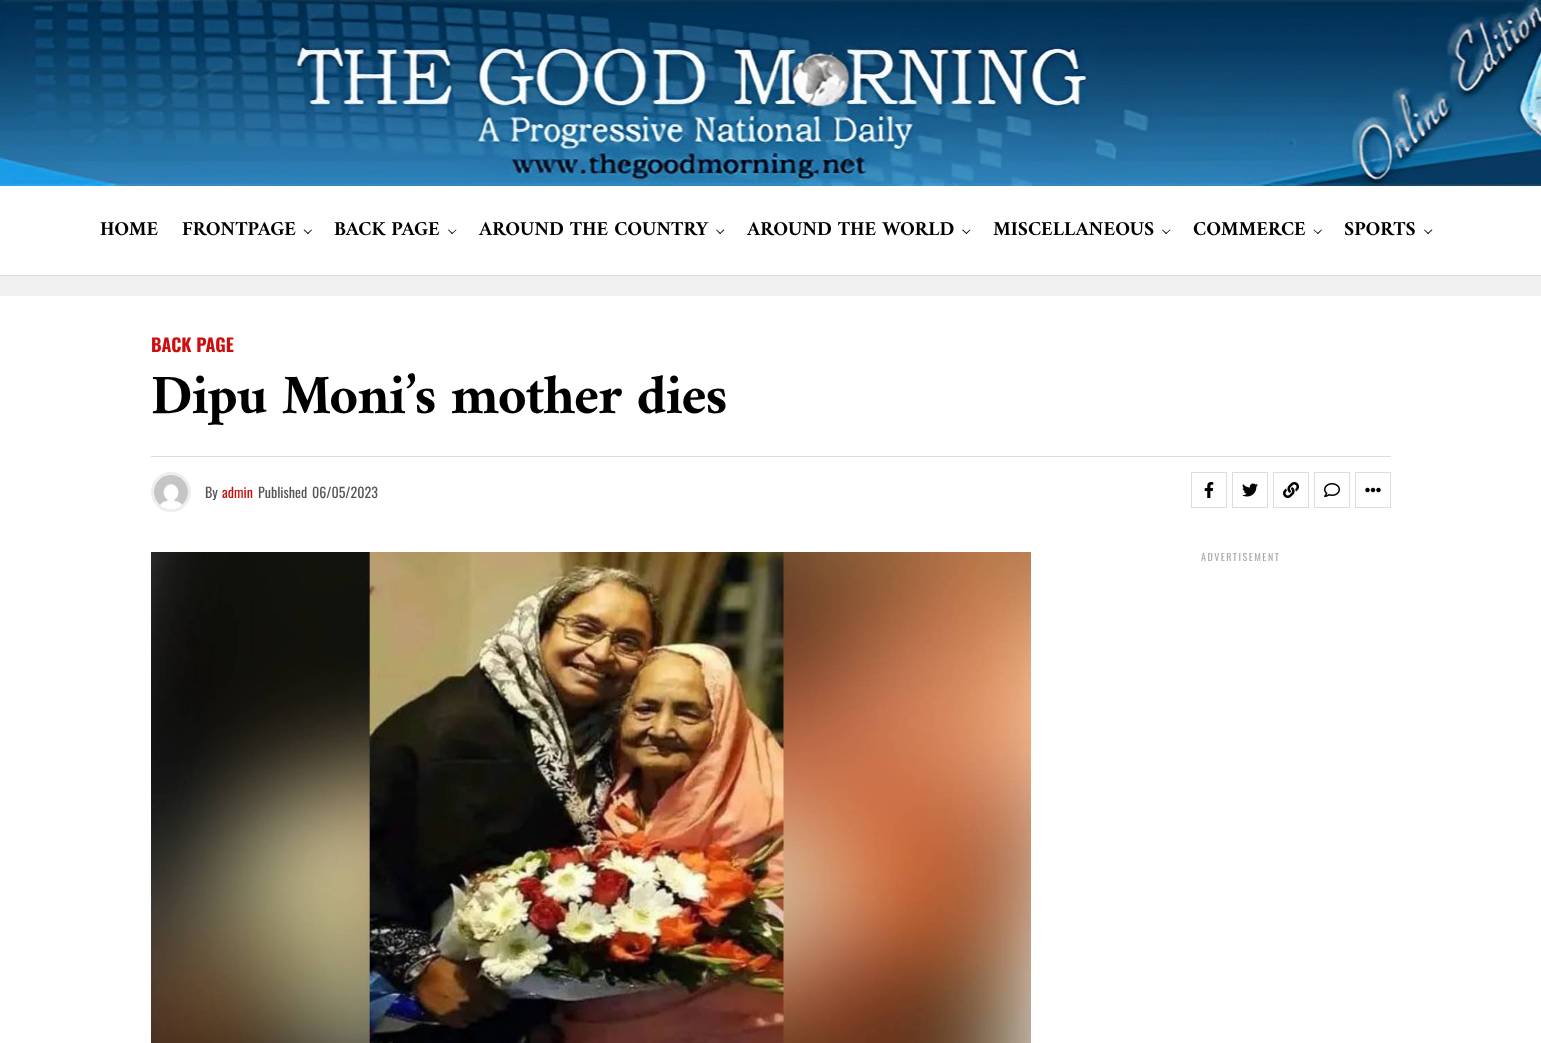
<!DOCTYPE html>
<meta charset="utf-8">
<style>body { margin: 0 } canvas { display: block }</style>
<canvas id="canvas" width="1541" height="1043"></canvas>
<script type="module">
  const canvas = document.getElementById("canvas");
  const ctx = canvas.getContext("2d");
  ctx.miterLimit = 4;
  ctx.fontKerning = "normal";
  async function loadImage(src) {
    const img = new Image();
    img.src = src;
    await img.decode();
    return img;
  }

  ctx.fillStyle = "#f0f0f0";
  ctx.fillRect(0, 0, 1541, 1043);
  ctx.drawImage(await loadImage("img1.png"), 0, 0, 1541, 186);
  ctx.fillStyle = "#ffffff";
  ctx.fillRect(0, 186, 1541, 89);
  ctx.fillStyle = "#dddddd";
  ctx.fillRect(0, 275, 1541, 1);
  ctx.font = "bold 20px Amiri";
  ctx.fillStyle = "#000000";
  ctx.fillText("HOME", 100, 235);
  ctx.fillText("FRONTPAGE", 182, 235);
  ctx.beginPath();
  ctx.moveTo(311.5, 229.5);
  ctx.lineTo(312, 230);
  ctx.lineTo(308, 234);
  ctx.lineTo(307, 233.5);
  ctx.closePath();
  ctx.fill();
  ctx.beginPath();
  ctx.moveTo(304.5, 229.5);
  ctx.lineTo(308.5, 233.5);
  ctx.lineTo(308, 234);
  ctx.lineTo(303.5, 230);
  ctx.closePath();
  ctx.fill();
  ctx.fillText("BACK PAGE", 334, 235);
  ctx.beginPath();
  ctx.moveTo(456, 229.5);
  ctx.lineTo(456.5, 230);
  ctx.lineTo(452, 234);
  ctx.lineTo(451.5, 233.5);
  ctx.closePath();
  ctx.fill();
  ctx.beginPath();
  ctx.moveTo(448.5, 229.5);
  ctx.lineTo(453, 233.5);
  ctx.lineTo(452, 234);
  ctx.lineTo(448, 230);
  ctx.closePath();
  ctx.fill();
  ctx.fillText("AROUND THE COUNTRY", 479, 235);
  ctx.beginPath();
  ctx.moveTo(723.5, 229.5);
  ctx.lineTo(724.5, 230);
  ctx.lineTo(720, 234);
  ctx.lineTo(719.5, 233.5);
  ctx.closePath();
  ctx.fill();
  ctx.beginPath();
  ctx.moveTo(716.5, 229.5);
  ctx.lineTo(721, 233.5);
  ctx.lineTo(720, 234);
  ctx.lineTo(716, 230);
  ctx.closePath();
  ctx.fill();
  ctx.fillText("AROUND THE WORLD", 747, 235);
  ctx.beginPath();
  ctx.moveTo(970, 229.5);
  ctx.lineTo(970.5, 230);
  ctx.lineTo(966.5, 234);
  ctx.lineTo(965.5, 233.5);
  ctx.closePath();
  ctx.fill();
  ctx.beginPath();
  ctx.moveTo(963, 229.5);
  ctx.lineTo(967, 233.5);
  ctx.lineTo(966.5, 234);
  ctx.lineTo(962, 230);
  ctx.closePath();
  ctx.fill();
  ctx.fillText("MISCELLANEOUS", 993, 235);
  ctx.beginPath();
  ctx.moveTo(1170, 229.5);
  ctx.lineTo(1170.5, 230);
  ctx.lineTo(1166, 234);
  ctx.lineTo(1165.5, 233.5);
  ctx.closePath();
  ctx.fill();
  ctx.beginPath();
  ctx.moveTo(1162.5, 229.5);
  ctx.lineTo(1167, 233.5);
  ctx.lineTo(1166, 234);
  ctx.lineTo(1162, 230);
  ctx.closePath();
  ctx.fill();
  ctx.fillText("COMMERCE", 1193, 235);
  ctx.beginPath();
  ctx.moveTo(1321.5, 229.5);
  ctx.lineTo(1322, 230);
  ctx.lineTo(1318, 234);
  ctx.lineTo(1317, 233.5);
  ctx.closePath();
  ctx.fill();
  ctx.beginPath();
  ctx.moveTo(1314, 229.5);
  ctx.lineTo(1318.5, 233.5);
  ctx.lineTo(1318, 234);
  ctx.lineTo(1313.5, 230);
  ctx.closePath();
  ctx.fill();
  ctx.fillText("SPORTS", 1344, 235);
  ctx.beginPath();
  ctx.moveTo(1431.5, 229.5);
  ctx.lineTo(1432.5, 230);
  ctx.lineTo(1428, 234);
  ctx.lineTo(1427.5, 233.5);
  ctx.closePath();
  ctx.fill();
  ctx.beginPath();
  ctx.moveTo(1424.5, 229.5);
  ctx.lineTo(1429, 233.5);
  ctx.lineTo(1428, 234);
  ctx.lineTo(1424, 230);
  ctx.closePath();
  ctx.fill();
  ctx.fillStyle = "#ffffff";
  ctx.fillRect(0, 296, 1541, 747);
  ctx.font = "bold 18px Oswald";
  ctx.fillStyle = "#cc0e0e";
  ctx.fillText("BACK PAGE", 151, 352);
  ctx.letterSpacing = "-1.1px";
  ctx.font = "bold 56px Amiri";
  ctx.fillStyle = "#000000";
  ctx.fillText("Dipu Moni’s mother dies", 151, 413);
  ctx.fillStyle = "#dddddd";
  ctx.fillRect(151, 456, 1240, 1);
  ctx.beginPath();
  ctx.arc(171, 492, 18.5, 0, Math.PI * 2);
  ctx.strokeStyle = "#eeeeee";
  ctx.lineWidth = 3;
  ctx.stroke();
  ctx.drawImage(await loadImage("img2.png"), 154, 475, 34, 34);
  ctx.letterSpacing = "0px";
  ctx.font = "14px Oswald";
  ctx.fillStyle = "#555555";
  ctx.fillText("By", 205, 498);
  ctx.fillStyle = "#cc0e0e";
  ctx.fillText("admin", 222, 498);
  ctx.fillStyle = "#555555";
  ctx.fillText("Published", 258, 498);
  ctx.fillText("06/05/2023", 312, 498);
  ctx.strokeStyle = "#dddddd";
  ctx.lineWidth = 1;
  ctx.strokeRect(1191.5, 472.5, 35, 35);
  ctx.drawImage(await loadImage("img3.png"), 1204, 482, 10, 16);
  ctx.strokeRect(1232.5, 472.5, 35, 35);
  ctx.drawImage(await loadImage("img4.png"), 1242, 483, 16, 14);
  ctx.strokeRect(1273.5, 472.5, 35, 35);
  ctx.drawImage(await loadImage("img5.png"), 1283, 482, 16, 16);
  ctx.strokeRect(1314.5, 472.5, 35, 35);
  ctx.drawImage(await loadImage("img6.png"), 1324, 483, 16, 14);
  ctx.strokeRect(1355.5, 472.5, 35, 35);
  ctx.drawImage(await loadImage("img7.png"), 1365, 487, 16, 6);
  ctx.drawImage(await loadImage("img8.png"), 151, 552, 880, 491);
  ctx.letterSpacing = "1.5px";
  ctx.font = "10px Oswald";
  ctx.fillStyle = "#aaaaaa";
  ctx.fillText("ADVERTISEMENT", 1201, 561);
</script>
